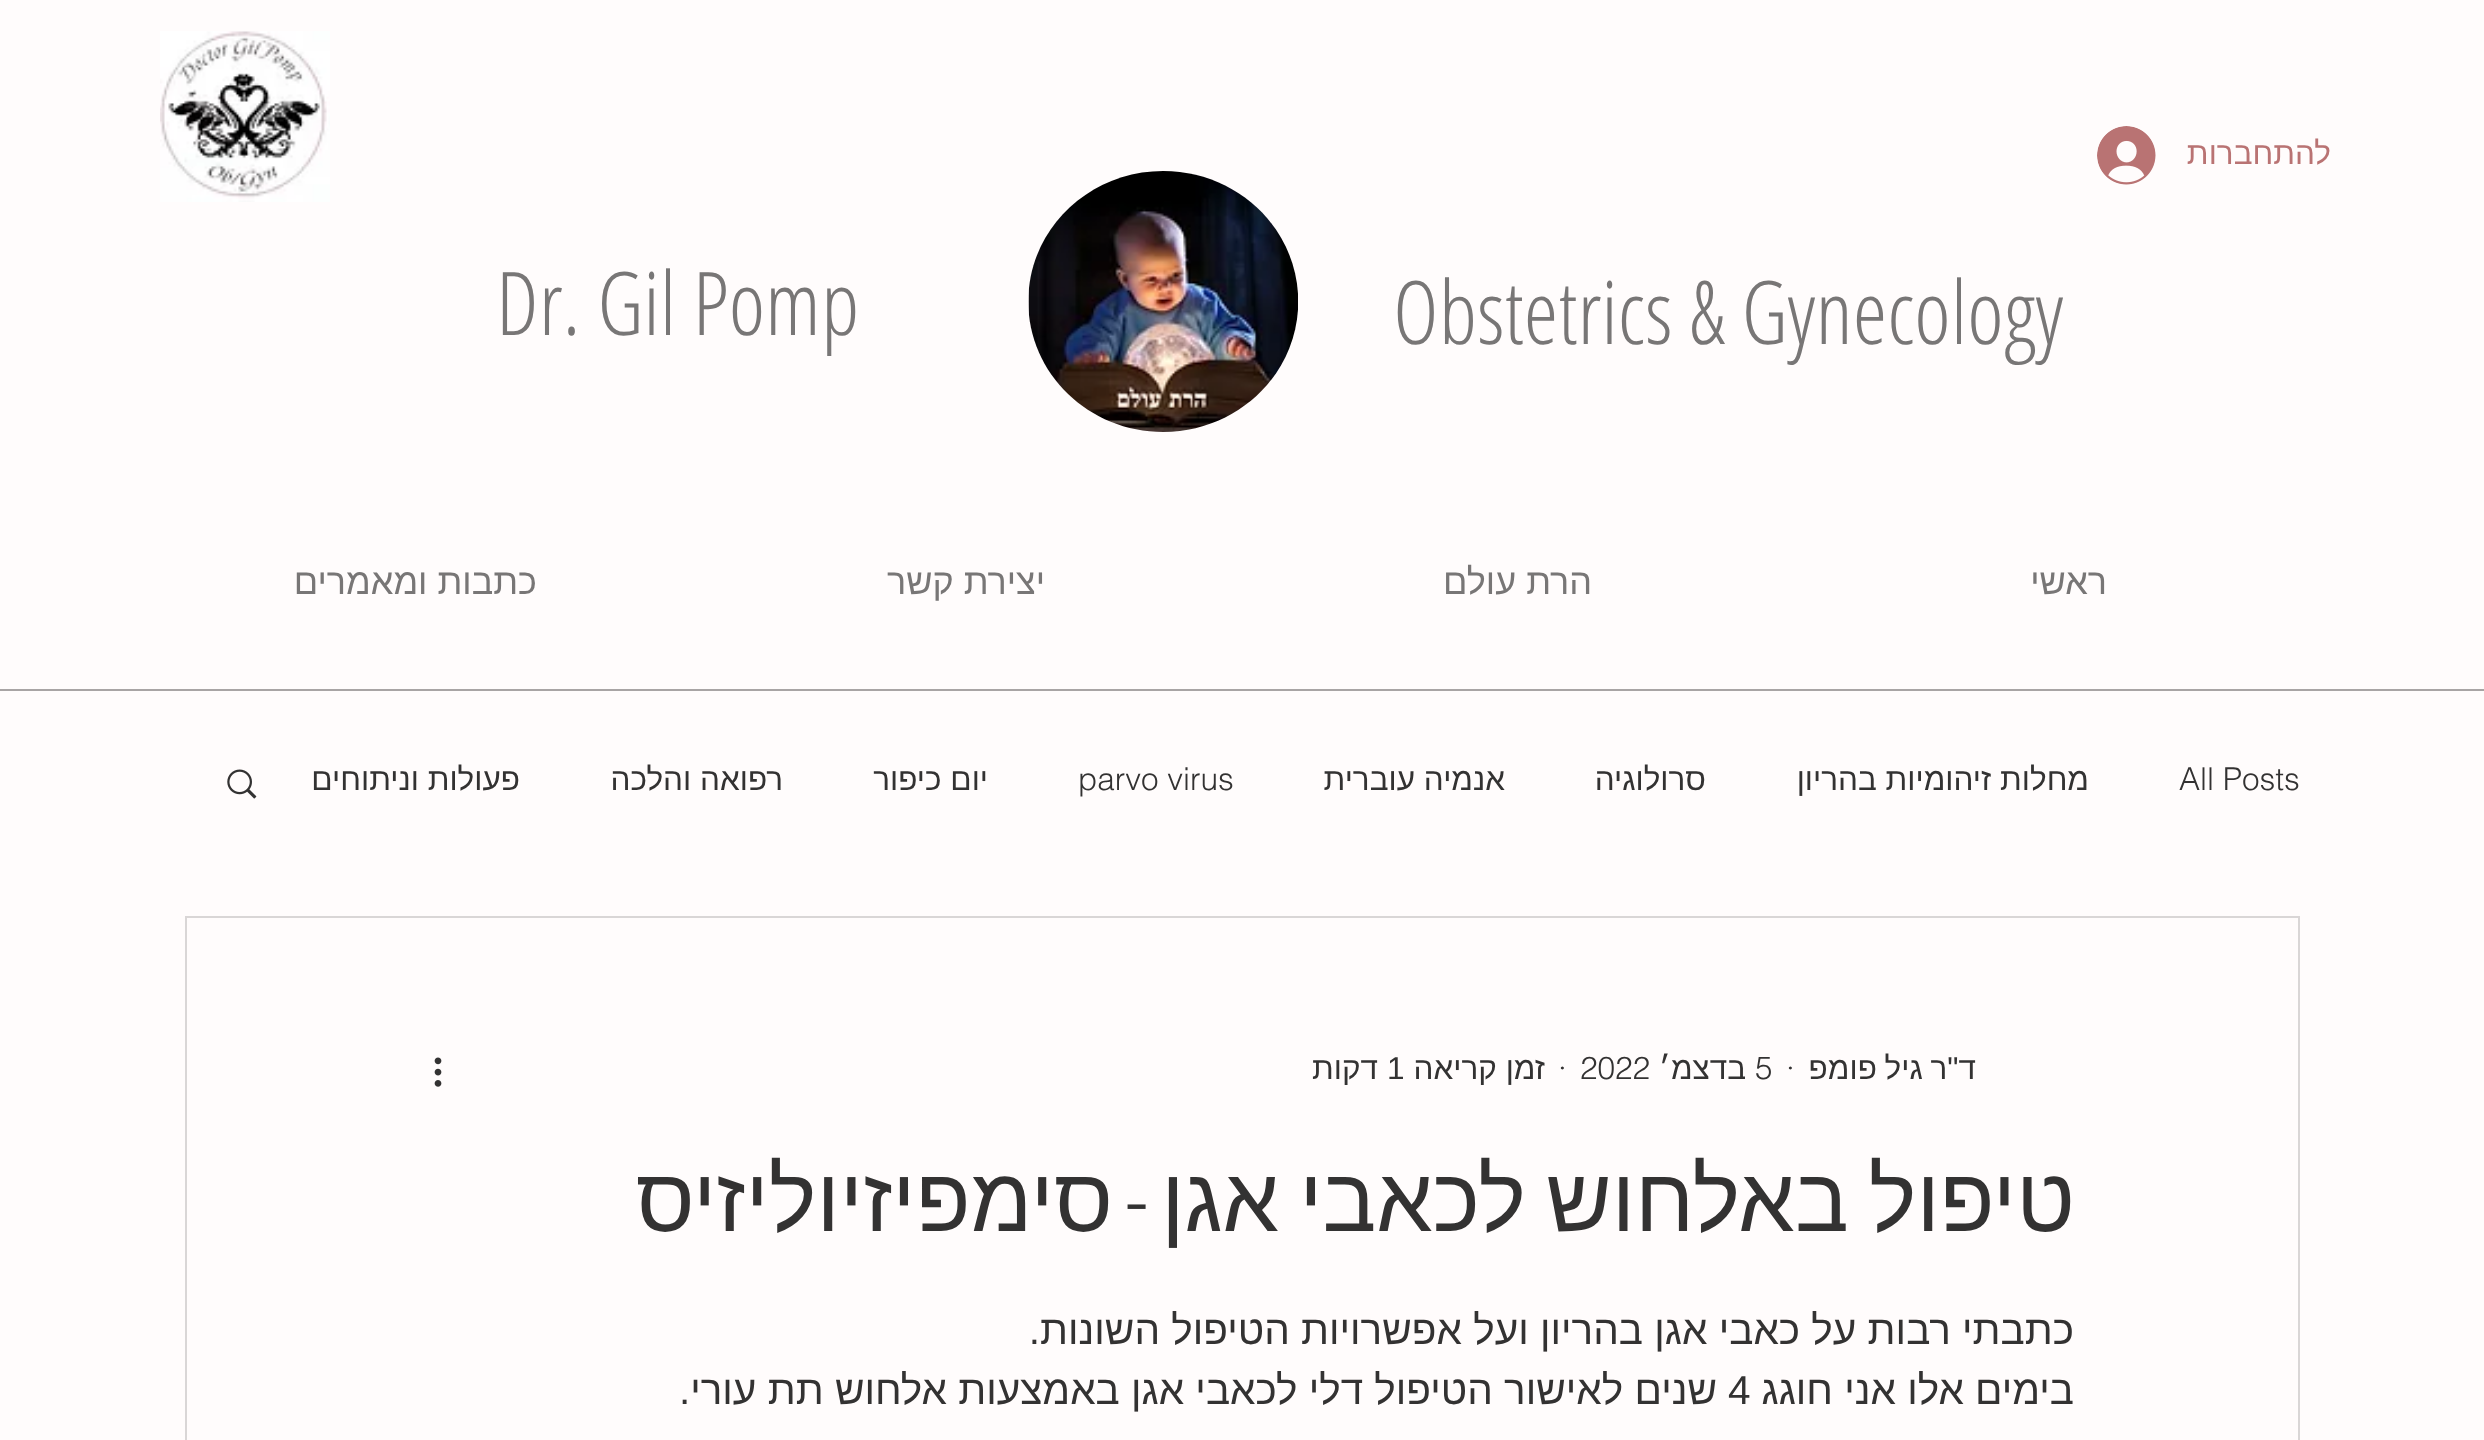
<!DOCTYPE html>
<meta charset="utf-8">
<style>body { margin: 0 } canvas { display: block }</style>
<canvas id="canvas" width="2484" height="1440"></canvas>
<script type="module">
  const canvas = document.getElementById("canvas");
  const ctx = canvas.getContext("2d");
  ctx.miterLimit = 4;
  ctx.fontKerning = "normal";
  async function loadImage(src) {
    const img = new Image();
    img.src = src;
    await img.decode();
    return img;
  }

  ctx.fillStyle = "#fffcfc";
  ctx.fillRect(0, 0, 2484, 1440);
  ctx.direction = "rtl";
  ctx.font = "31.5px Liberation Sans";
  ctx.fillStyle = "#b97373";
  ctx.fillText("להתחברות", 2331, 164);
  ctx.drawImage(await loadImage("img1.png"), 2097, 126, 59, 59);
  ctx.drawImage(await loadImage("img2.png"), 160, 31, 170, 171);
  ctx.direction = "ltr";
  ctx.font = "300 87.75px Open Sans Condensed";
  ctx.fillStyle = "#787676";
  ctx.fillText("Obstetrics & Gynecology", 1393, 344);
  ctx.drawImage(await loadImage("img3.png"), 1028, 171, 270, 261);
  ctx.fillText("Dr. Gil Pomp", 496, 335);
  ctx.direction = "rtl";
  ctx.font = "36px Liberation Sans";
  ctx.fillText("ראשי", 2107, 594);
  ctx.fillText("הרת עולם", 1592, 594);
  ctx.fillText("יצירת קשר", 1045, 594);
  ctx.fillText("כתבות ומאמרים", 537, 594);
  ctx.fillStyle = "#a8a4a4";
  ctx.fillRect(0, 689, 2484, 2);
  ctx.direction = "ltr";
  ctx.font = "300 31.5px helvetica";
  ctx.fillStyle = "#333232";
  ctx.fillText("All Posts", 2179, 790);
  ctx.direction = "rtl";
  ctx.font = "31.5px Liberation Sans";
  ctx.fillText("מחלות זיהומיות בהריון", 2089, 790);
  ctx.fillText("סרולוגיה", 1706, 790);
  ctx.fillText("אנמיה עוברית", 1505, 790);
  ctx.direction = "ltr";
  ctx.font = "300 31.5px helvetica";
  ctx.fillText("parvo virus", 1078, 790);
  ctx.direction = "rtl";
  ctx.font = "31.5px Liberation Sans";
  ctx.fillText("יום כיפור", 988, 790);
  ctx.fillText("רפואה והלכה", 783, 790);
  ctx.fillText("פעולות וניתוחים", 520, 790);
  ctx.drawImage(await loadImage("img4.png"), 227, 769, 30, 30);
  ctx.strokeStyle = "#d9d6d6";
  ctx.lineWidth = 2;
  ctx.strokeRect(186, 917, 2113, 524);
  ctx.wordSpacing = "-1px";
  ctx.fillText("ד\"ר גיל פומפ", 1976, 1079);
  ctx.wordSpacing = "0px";
  ctx.direction = "ltr";
  ctx.font = "300 31.5px helvetica";
  ctx.fillText("·", 1786, 1079);
  ctx.fillText("5", 1755, 1079);
  ctx.direction = "rtl";
  ctx.font = "31.5px Liberation Sans";
  ctx.fillText("בדצמ׳", 1746, 1079);
  ctx.direction = "ltr";
  ctx.font = "300 31.5px helvetica";
  ctx.fillText("2022", 1580, 1079);
  ctx.fillText("·", 1558, 1079);
  ctx.direction = "rtl";
  ctx.font = "31.5px Liberation Sans";
  ctx.fillText("זמן קריאה", 1545, 1079);
  ctx.direction = "ltr";
  ctx.fillText("1", 1387, 1079);
  ctx.direction = "rtl";
  ctx.fillText("דקות", 1378, 1079);
  ctx.drawImage(await loadImage("img5.png"), 434, 1057, 8, 30);
  ctx.wordSpacing = "-5px";
  ctx.font = "90px Liberation Sans";
  ctx.fillText("טיפול באלחוש לכאבי אגן", 2075, 1231);
  ctx.wordSpacing = "0px";
  ctx.font = "300 90px Open Sans Condensed";
  ctx.fillText("-", 1148, 1231);
  ctx.font = "90px Liberation Sans";
  ctx.fillText("סימפיזיוליזיס", 1113, 1231);
  ctx.font = "40.5px Liberation Sans";
  ctx.fillText("כתבתי רבות על כאבי אגן בהריון ועל אפשרויות הטיפול השונות.", 2074, 1344);
  ctx.fillText("בימים אלו אני חוגג", 2074, 1404);
  ctx.direction = "ltr";
  ctx.fillText("4", 1728, 1404);
  ctx.direction = "rtl";
  ctx.fillText("שנים לאישור הטיפול דלי לכאבי אגן באמצעות אלחוש תת עורי.", 1717, 1404);
</script>
